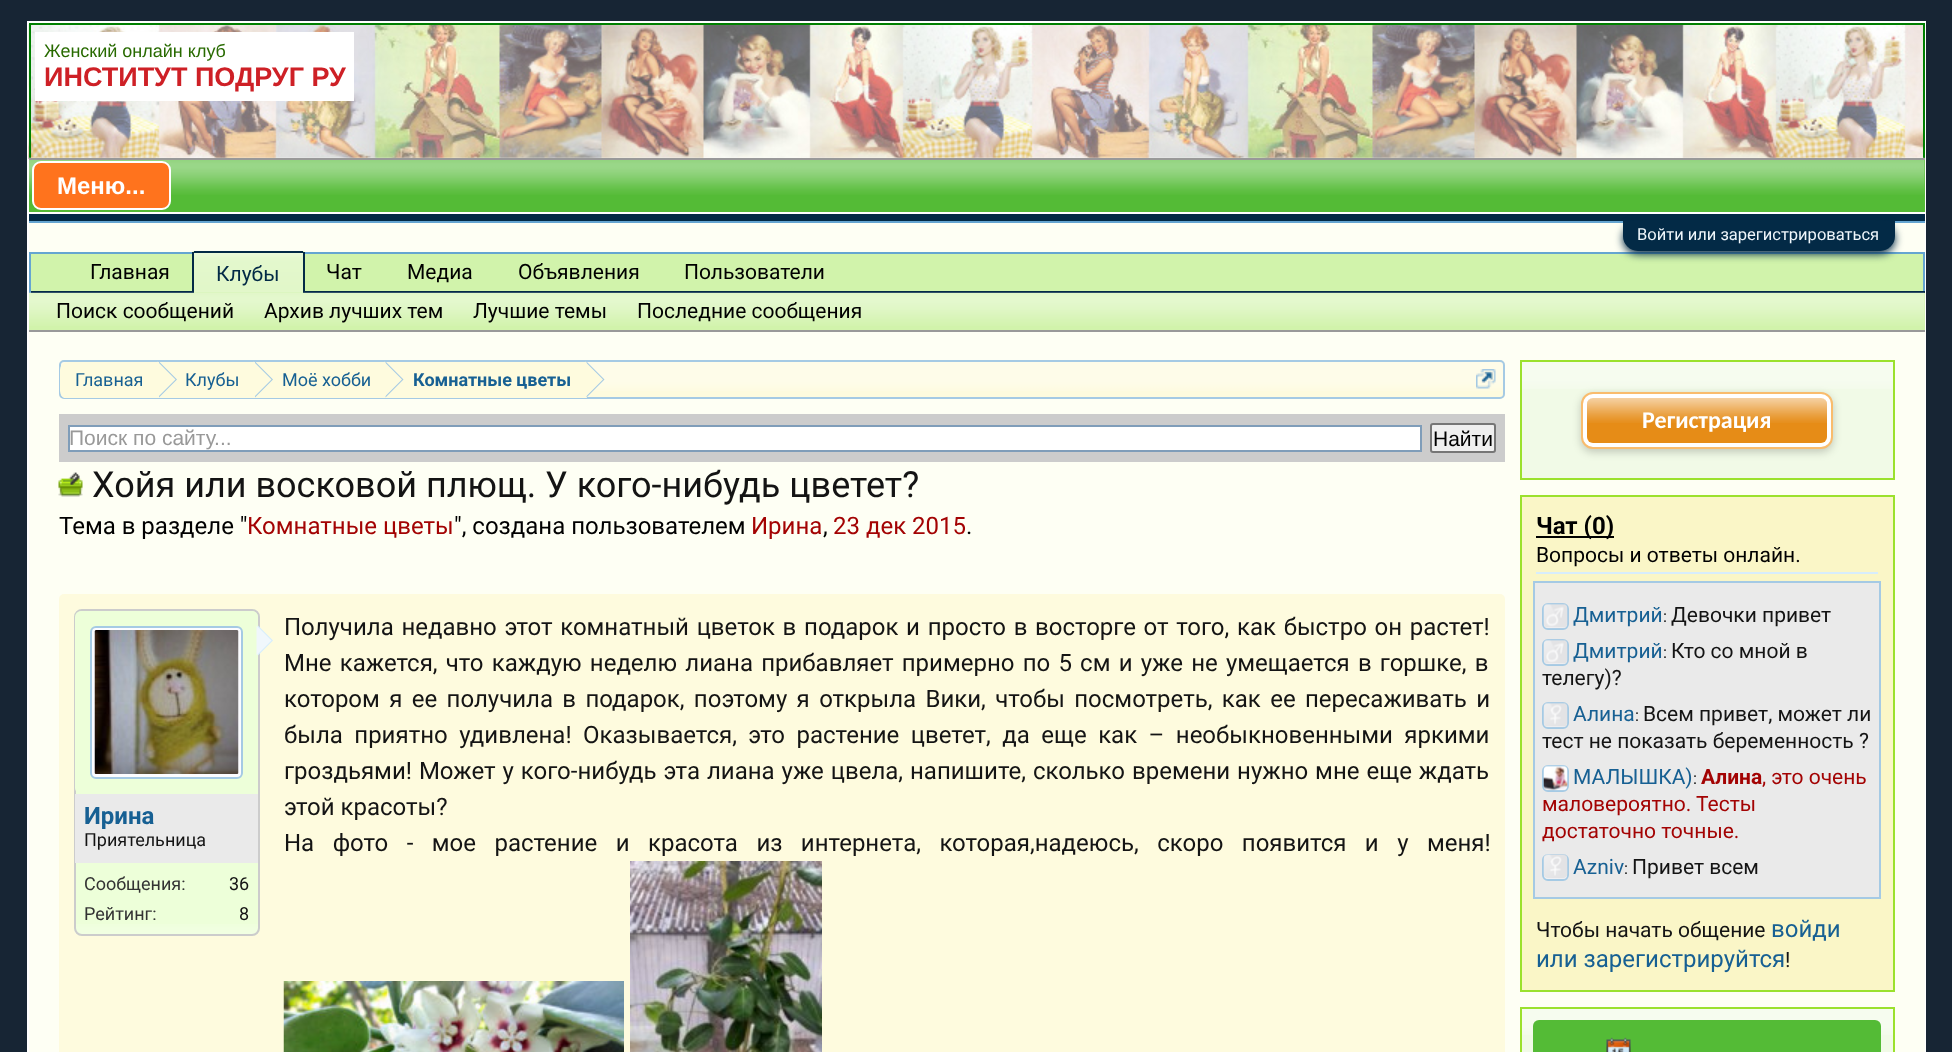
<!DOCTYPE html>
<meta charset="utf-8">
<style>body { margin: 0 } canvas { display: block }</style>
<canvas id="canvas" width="1952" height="1052"></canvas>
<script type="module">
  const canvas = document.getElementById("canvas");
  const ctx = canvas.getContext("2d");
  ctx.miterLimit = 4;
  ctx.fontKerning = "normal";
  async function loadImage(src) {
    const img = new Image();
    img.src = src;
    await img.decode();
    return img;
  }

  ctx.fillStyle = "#172534";
  ctx.fillRect(0, 0, 1952, 1052);
  ctx.fillStyle = "#ffffff";
  ctx.fillRect(27, 21, 1899, 1031);
  ctx.drawImage(await loadImage("img1.png"), 28, 24, 1895, 135);
  ctx.strokeStyle = "#008000";
  ctx.lineWidth = 2;
  ctx.strokeRect(30, 24, 1894, 136);
  ctx.fillRect(35, 32, 319, 69);
  ctx.font = "18px Liberation Sans";
  ctx.fillStyle = "#286a00";
  ctx.fillText("Женский онлайн клуб", 44, 57);
  ctx.font = "bold 27px Liberation Sans";
  ctx.fillStyle = "#ce2026";
  ctx.fillText("ИНСТИТУТ ПОДРУГ РУ", 44, 86);
  ctx.fillStyle = "#032a46";
  ctx.fillRect(29, 214, 1896, 7);
  ctx.fillStyle = "#65a5d1";
  ctx.fillRect(29, 221, 1896, 2);
  ctx.fillStyle = "#fefff4";
  ctx.fillRect(29, 223, 1896, 29);
  ctx.fillStyle = "#d1f3ab";
  ctx.fillRect(31, 254, 1892, 37);
  ctx.fillStyle = "#65a5d1";
  ctx.fillRect(29, 252, 1896, 2);
  ctx.fillStyle = "#032a46";
  ctx.filter = "blur(4px)";
  ctx.beginPath();
  ctx.roundRect(1623, 224, 272, 30, 15);
  ctx.fill();
  ctx.filter = "none";
  ctx.fillStyle = "#54bb36";
  ctx.fillRect(29, 160, 1896, 52);
  ctx.drawImage(await loadImage("img2.png"), 28, 157, 1897, 38);
  ctx.fillStyle = "#999999";
  ctx.fillRect(29, 158, 1896, 2);
  ctx.fillStyle = "#ff731d";
  ctx.beginPath();
  ctx.roundRect(33, 162, 137, 47, 8);
  ctx.fill();
  ctx.strokeStyle = "#ffffff";
  ctx.stroke();
  ctx.font = "bold 24px Liberation Sans";
  ctx.fillStyle = "#ffffff";
  ctx.fillText("Меню...", 57, 194);
  ctx.fillStyle = "#032a46";
  ctx.beginPath();
  ctx.roundRect(1623, 221, 272, 30, [0, 0, 15, 15]);
  ctx.fill();
  ctx.font = "16.5px Roboto";
  ctx.fillStyle = "#f0f7fc";
  ctx.fillText("Войти или зарегистрироваться", 1637, 240);
  ctx.fillStyle = "#65a5d1";
  ctx.fillRect(1923, 252, 2, 41);
  ctx.fillStyle = "#032a46";
  ctx.fillRect(29, 291, 1896, 2);
  ctx.fillStyle = "#65a5d1";
  ctx.fillRect(29, 252, 2, 41);
  ctx.font = "21px Roboto";
  ctx.fillStyle = "#000000";
  ctx.fillText("Главная", 90, 279);
  ctx.fillText("Чат", 326, 279);
  ctx.fillText("Медиа", 407, 279);
  ctx.fillText("Объявления", 518, 279);
  ctx.fillText("Пользователи", 684, 279);
  ctx.fillStyle = "#d1f3ab";
  ctx.beginPath();
  ctx.roundRect(192, 251, 113, 42, [3, 3, 0, 0]);
  ctx.fill();
  ctx.drawImage(await loadImage("img3.png"), 194, 253, 109, 40);
  ctx.fillStyle = "#032a46";
  ctx.fillRect(194, 251, 109, 2);
  ctx.fillRect(303, 252, 2, 41);
  ctx.fillRect(192, 252, 2, 41);
  ctx.fillText("Клубы", 216, 281);
  ctx.fillStyle = "#d1f3ab";
  ctx.fillRect(29, 293, 1896, 37);
  ctx.drawImage(await loadImage("img4.png"), 29, 292, 1896, 34);
  ctx.fillStyle = "#999999";
  ctx.fillRect(29, 330, 1896, 2);
  ctx.fillStyle = "#000000";
  ctx.fillText("Поиск сообщений", 56, 318);
  ctx.fillText("Архив лучших тем", 264, 318);
  ctx.fillText("Лучшие темы", 473, 318);
  ctx.fillText("Последние сообщения", 637, 318);
  ctx.fillStyle = "#fefff4";
  ctx.fillRect(29, 332, 1896, 720);
  ctx.fillStyle = "#fefbde";
  ctx.beginPath();
  ctx.roundRect(59, 360, 1446, 39, 5);
  ctx.fill();
  ctx.drawImage(await loadImage("img5.png"), 59, 361, 1445, 30);
  ctx.beginPath();
  ctx.roundRect(60, 361, 1444, 37, 4);
  ctx.strokeStyle = "#a5cae4";
  ctx.stroke();
  ctx.save();
  ctx.beginPath();
  ctx.roundRect(60, 362, 1443, 36, 3);
  ctx.clip();
  ctx.beginPath();
  ctx.roundRect(60, 362, 99, 37, [8, 0, 0, 8]);
  ctx.fill();
  ctx.restore();
  ctx.font = "18px Roboto";
  ctx.fillStyle = "#176093";
  ctx.fillText("Главная", 75, 386);
  ctx.fillStyle = "#fefbde";
  ctx.fillRect(159, 362, 428, 36);
  ctx.fillStyle = "#a5cae4";
  ctx.beginPath();
  ctx.moveTo(159, 397.5);
  ctx.lineTo(159, 361.5);
  ctx.lineTo(177, 379.5);
  ctx.closePath();
  ctx.fill();
  ctx.fillStyle = "#fefbde";
  ctx.beginPath();
  ctx.moveTo(157.5, 397.5);
  ctx.lineTo(157.5, 361.5);
  ctx.lineTo(175.5, 379.5);
  ctx.closePath();
  ctx.fill();
  ctx.fillStyle = "#176093";
  ctx.fillText("Клубы", 185, 386);
  ctx.fillStyle = "#a5cae4";
  ctx.beginPath();
  ctx.moveTo(255, 397.5);
  ctx.lineTo(255, 361.5);
  ctx.lineTo(273, 379.5);
  ctx.closePath();
  ctx.fill();
  ctx.fillStyle = "#fefbde";
  ctx.beginPath();
  ctx.moveTo(253.5, 397.5);
  ctx.lineTo(253.5, 361.5);
  ctx.lineTo(271.5, 379.5);
  ctx.closePath();
  ctx.fill();
  ctx.fillStyle = "#176093";
  ctx.fillText("Моё хобби", 282, 386);
  ctx.fillStyle = "#a5cae4";
  ctx.beginPath();
  ctx.moveTo(385.5, 397.5);
  ctx.lineTo(385.5, 361.5);
  ctx.lineTo(403.5, 379.5);
  ctx.closePath();
  ctx.fill();
  ctx.fillStyle = "#fefbde";
  ctx.beginPath();
  ctx.moveTo(384, 397.5);
  ctx.lineTo(384, 361.5);
  ctx.lineTo(402, 379.5);
  ctx.closePath();
  ctx.fill();
  ctx.font = "bold 18px Roboto";
  ctx.fillStyle = "#176093";
  ctx.fillText("Комнатные цветы", 413, 386);
  ctx.fillStyle = "#a5cae4";
  ctx.beginPath();
  ctx.moveTo(586.5, 397.5);
  ctx.lineTo(586.5, 361.5);
  ctx.lineTo(604.5, 379.5);
  ctx.closePath();
  ctx.fill();
  ctx.fillStyle = "#fefbde";
  ctx.beginPath();
  ctx.moveTo(585, 397.5);
  ctx.lineTo(585, 361.5);
  ctx.lineTo(603, 379.5);
  ctx.closePath();
  ctx.fill();
  ctx.drawImage(await loadImage("img6.png"), 1476, 369, 20, 20);
  ctx.fillStyle = "#cccccc";
  ctx.fillRect(59, 414, 1446, 48);
  ctx.fillStyle = "#ffffff";
  ctx.beginPath();
  ctx.rect(69, 426, 1352, 25);
  ctx.fill();
  ctx.strokeStyle = "#7f9db9";
  ctx.stroke();
  ctx.font = "21px Liberation Sans";
  ctx.fillStyle = "#999999";
  ctx.fillText("Поиск по сайту...", 69, 445);
  ctx.fillStyle = "#efefef";
  ctx.beginPath();
  ctx.roundRect(1431, 424, 64, 28, 2);
  ctx.fill();
  ctx.strokeStyle = "#767676";
  ctx.stroke();
  ctx.fillStyle = "#000000";
  ctx.fillText("Найти", 1433, 446);
  ctx.drawImage(await loadImage("img7.png"), 58, 472, 25, 25);
  ctx.font = "36px Roboto";
  ctx.fillStyle = "#141414";
  ctx.fillText("Хойя или восковой плющ. У кого-нибудь цветет?", 92, 497);
  ctx.font = "24px Roboto";
  ctx.fillStyle = "#000000";
  ctx.fillText("Тема в разделе \"", 59, 534);
  ctx.fillStyle = "#a30303";
  ctx.fillText("Комнатные цветы", 247, 534);
  ctx.fillStyle = "#000000";
  ctx.fillText("\", создана пользователем", 454, 534);
  ctx.fillStyle = "#a30303";
  ctx.fillText("Ирина", 751, 534);
  ctx.fillStyle = "#000000";
  ctx.fillText(",", 823, 534);
  ctx.fillStyle = "#a30303";
  ctx.fillText("23 дек 2015", 833, 534);
  ctx.fillStyle = "#000000";
  ctx.fillText(".", 966, 534);
  ctx.fillStyle = "#fefbde";
  ctx.beginPath();
  ctx.roundRect(59, 594, 1446, 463, 5);
  ctx.fill();
  ctx.fillStyle = "#edffd9";
  ctx.beginPath();
  ctx.roundRect(74, 609, 186, 327, 8);
  ctx.fill();
  ctx.drawImage(await loadImage("img8.png"), 74, 924, 185, 11);
  ctx.beginPath();
  ctx.roundRect(75, 610, 184, 325, 7);
  ctx.strokeStyle = "#cccccc";
  ctx.stroke();
  ctx.beginPath();
  ctx.roundRect(75, 611, 183, 183, 6);
  ctx.fill();
  ctx.fillStyle = "#fcfcff";
  ctx.beginPath();
  ctx.roundRect(91, 627, 151, 151, 5);
  ctx.fill();
  ctx.strokeStyle = "#a5cae4";
  ctx.stroke();
  ctx.drawImage(await loadImage("img9.png"), 94, 630, 145, 144);
  ctx.fillStyle = "#d7edfc";
  ctx.beginPath();
  ctx.moveTo(258, 655.5);
  ctx.lineTo(258, 625.5);
  ctx.lineTo(273, 640.5);
  ctx.closePath();
  ctx.fill();
  ctx.fillStyle = "#f0f7fc";
  ctx.beginPath();
  ctx.moveTo(256.5, 655.5);
  ctx.lineTo(256.5, 625.5);
  ctx.lineTo(271.5, 640.5);
  ctx.closePath();
  ctx.fill();
  ctx.fillStyle = "#eaeaea";
  ctx.fillRect(75, 794, 183, 69);
  ctx.font = "bold 24px Roboto";
  ctx.fillStyle = "#176093";
  ctx.fillText("Ирина", 84, 824);
  ctx.font = "18px Roboto";
  ctx.fillStyle = "#141414";
  ctx.fillText("Приятельница", 84, 846);
  ctx.fillStyle = "#333333";
  ctx.fillText("Сообщения:", 84, 890);
  ctx.fillStyle = "#141414";
  ctx.fillText("36", 229, 890);
  ctx.fillStyle = "#333333";
  ctx.fillText("Рейтинг:", 84, 920);
  ctx.fillStyle = "#141414";
  ctx.fillText("8", 239, 920);
  ctx.wordSpacing = "1.75px";
  ctx.font = "24px Roboto";
  ctx.fillText("Получила недавно этот комнатный цветок в подарок и просто в восторге от того, как быстро он растет!", 284, 635);
  ctx.wordSpacing = "2.25px";
  ctx.fillText("Мне кажется, что каждую неделю лиана прибавляет примерно по 5 см и уже не умещается в горшке, в", 284, 671);
  ctx.wordSpacing = "3.4px";
  ctx.fillText("котором я ее получила в подарок, поэтому я открыла Вики, чтобы посмотреть, как ее пересаживать и", 284, 707);
  ctx.wordSpacing = "5.5px";
  ctx.fillText("была приятно удивлена! Оказывается, это растение цветет, да еще как – необыкновенными яркими", 284, 743);
  ctx.wordSpacing = "1px";
  ctx.fillText("гроздьями! Может у кого-нибудь эта лиана уже цвела, напишите, сколько времени нужно мне еще ждать", 284, 779);
  ctx.wordSpacing = "0px";
  ctx.fillText("этой красоты?", 284, 815);
  ctx.wordSpacing = "12.5px";
  ctx.fillText("На фото - мое растение и красота из интернета, которая,надеюсь, скоро появится и у меня!", 284, 851);
  ctx.drawImage(await loadImage("img10.png"), 283, 981, 341, 71);
  ctx.drawImage(await loadImage("img11.png"), 630, 861, 192, 191);
  ctx.fillStyle = "#f1fae7";
  ctx.fillRect(1522, 362, 371, 116);
  ctx.drawImage(await loadImage("img12.png"), 1522, 362, 371, 27);
  ctx.strokeStyle = "#9be12d";
  ctx.strokeRect(1521, 361, 373, 118);
  ctx.fillStyle = "rgba(0, 0, 0, 0.2)";
  ctx.filter = "blur(4px)";
  ctx.beginPath();
  ctx.roundRect(1581, 395, 252, 57, 12);
  ctx.fill();
  ctx.filter = "none";
  ctx.fillStyle = "#ffffff";
  ctx.beginPath();
  ctx.roundRect(1582, 393, 250, 55, 11);
  ctx.fill();
  ctx.strokeStyle = "#f9bc6d";
  ctx.stroke();
  ctx.fillStyle = "#e68c17";
  ctx.beginPath();
  ctx.roundRect(1587, 398, 240, 45, 6);
  ctx.fill();
  ctx.drawImage(await loadImage("img13.png"), 1587, 398, 240, 25);
  ctx.wordSpacing = "0px";
  ctx.font = "bold 24px Carlito";
  ctx.fillStyle = "#ffffff";
  ctx.fillText("Регистрация", 1642, 428);
  ctx.fillStyle = "#faf6c7";
  ctx.beginPath();
  ctx.rect(1521, 496, 373, 495);
  ctx.fill();
  ctx.strokeStyle = "#9be12d";
  ctx.stroke();
  ctx.fillStyle = "#d7edfc";
  ctx.fillRect(1536, 572, 342, 2);
  ctx.fillStyle = "#000000";
  ctx.fillRect(1536, 536, 78, 2);
  ctx.font = "bold 24px Roboto";
  ctx.fillText("Чат (0)", 1536, 534);
  ctx.font = "21px Roboto";
  ctx.fillText("Вопросы и ответы онлайн.", 1536, 562);
  ctx.fillStyle = "#eaeaea";
  ctx.beginPath();
  ctx.rect(1534, 582, 346, 316);
  ctx.fill();
  ctx.strokeStyle = "#a5cae4";
  ctx.stroke();
  ctx.fillStyle = "#fcfcff";
  ctx.beginPath();
  ctx.roundRect(1543, 604, 25, 25, 5);
  ctx.fill();
  ctx.stroke();
  ctx.drawImage(await loadImage("img14.png"), 1543, 603, 25, 26);
  ctx.fillStyle = "#176093";
  ctx.fillText("Дмитрий", 1573, 622);
  ctx.font = "16.5px Roboto";
  ctx.fillStyle = "#141414";
  ctx.fillText(":", 1663, 622);
  ctx.font = "21px Roboto";
  ctx.fillText("Девочки привет", 1671, 622);
  ctx.fillStyle = "#fcfcff";
  ctx.beginPath();
  ctx.roundRect(1543, 640, 25, 25, 5);
  ctx.fill();
  ctx.stroke();
  ctx.drawImage(await loadImage("img14.png"), 1543, 639, 25, 26);
  ctx.fillStyle = "#176093";
  ctx.fillText("Дмитрий", 1573, 658);
  ctx.font = "16.5px Roboto";
  ctx.fillStyle = "#141414";
  ctx.fillText(":", 1663, 658);
  ctx.font = "21px Roboto";
  ctx.fillText("Кто со мной в", 1671, 658);
  ctx.fillText("телегу)?", 1542, 685);
  ctx.fillStyle = "#fcfcff";
  ctx.beginPath();
  ctx.roundRect(1543, 703, 25, 25, 5);
  ctx.fill();
  ctx.stroke();
  ctx.drawImage(await loadImage("img15.png"), 1543, 702, 25, 26);
  ctx.fillStyle = "#176093";
  ctx.fillText("Алина", 1573, 721);
  ctx.font = "16.5px Roboto";
  ctx.fillStyle = "#141414";
  ctx.fillText(":", 1635, 721);
  ctx.font = "21px Roboto";
  ctx.fillText("Всем привет, может ли", 1643, 721);
  ctx.fillText("тест не показать беременность ?", 1542, 748);
  ctx.fillStyle = "#fcfcff";
  ctx.beginPath();
  ctx.roundRect(1543, 766, 25, 25, 5);
  ctx.fill();
  ctx.stroke();
  ctx.drawImage(await loadImage("img16.png"), 1543, 765, 25, 26);
  ctx.fillStyle = "#176093";
  ctx.fillText("МАЛЫШКА)", 1573, 784);
  ctx.font = "16.5px Roboto";
  ctx.fillStyle = "#141414";
  ctx.fillText(":", 1693, 784);
  ctx.font = "bold 21px Roboto";
  ctx.fillStyle = "#a30303";
  ctx.fillText("Алина", 1701, 784);
  ctx.font = "21px Roboto";
  ctx.fillText(", это очень", 1762, 784);
  ctx.fillText("маловероятно. Тесты", 1542, 811);
  ctx.fillText("достаточно точные.", 1542, 838);
  ctx.fillStyle = "#fcfcff";
  ctx.beginPath();
  ctx.roundRect(1543, 855, 25, 25, 5);
  ctx.fill();
  ctx.stroke();
  ctx.drawImage(await loadImage("img17.png"), 1543, 854, 25, 25);
  ctx.fillStyle = "#176093";
  ctx.fillText("Azniv", 1573, 874);
  ctx.font = "16.5px Roboto";
  ctx.fillStyle = "#141414";
  ctx.fillText(":", 1624, 874);
  ctx.font = "21px Roboto";
  ctx.fillText("Привет всем", 1632, 874);
  ctx.fillText("Чтобы начать общение", 1536, 937);
  ctx.font = "24px Roboto";
  ctx.fillStyle = "#176093";
  ctx.fillText("войди", 1771, 937);
  ctx.fillText("или зарегистрируйтся", 1536, 967);
  ctx.font = "21px Roboto";
  ctx.fillStyle = "#141414";
  ctx.fillText("!", 1785, 967);
  ctx.fillStyle = "#f1fae7";
  ctx.fillRect(1522, 1009, 371, 43);
  ctx.drawImage(await loadImage("img18.png"), 1522, 1009, 371, 26);
  ctx.strokeStyle = "#9be12d";
  ctx.strokeRect(1521, 1008, 373, 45);
  ctx.fillStyle = "#54bb36";
  ctx.beginPath();
  ctx.roundRect(1533, 1020, 348, 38, 6);
  ctx.fill();
  ctx.drawImage(await loadImage("img19.png"), 1606, 1037, 25, 15);
</script>
